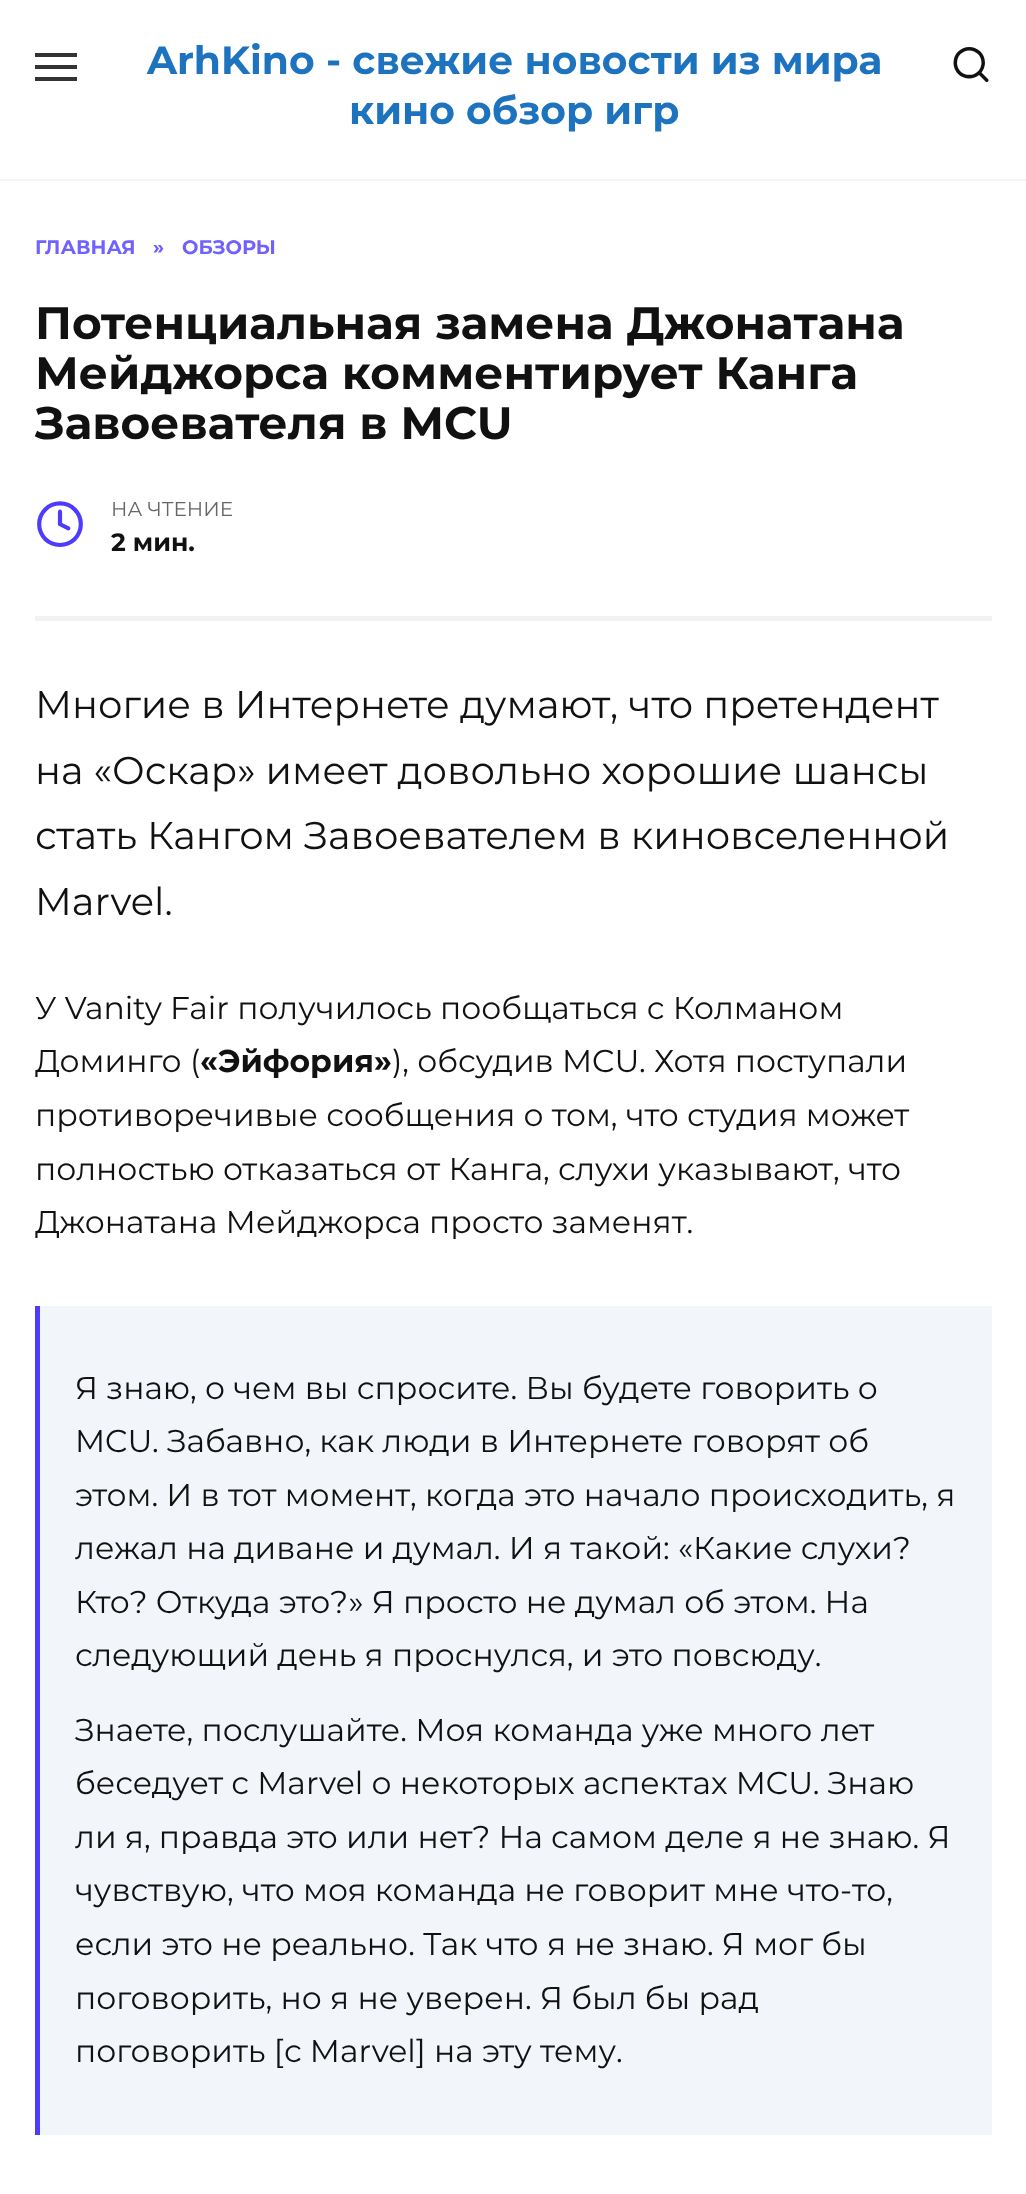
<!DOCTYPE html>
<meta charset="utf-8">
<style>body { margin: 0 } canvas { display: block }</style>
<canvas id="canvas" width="1026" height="2194"></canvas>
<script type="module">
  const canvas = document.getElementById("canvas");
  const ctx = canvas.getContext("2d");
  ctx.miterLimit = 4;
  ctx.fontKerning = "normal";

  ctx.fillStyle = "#ffffff";
  ctx.fillRect(0, 0, 1026, 2194);
  ctx.fillStyle = "#f2f5f9";
  ctx.fillRect(0, 179, 1026, 2);
  ctx.fillStyle = "#333333";
  ctx.fillRect(35, 53, 42, 4);
  ctx.fillRect(35, 65, 42, 4);
  ctx.fillRect(35, 77, 42, 4);
  ctx.font = "bold 39.25px Montserrat";
  ctx.fillStyle = "#1e73be";
  ctx.fillText("ArhKino - свежие новости из мира", 147, 74);
  ctx.fillText("кино обзор игр", 349, 124);
  ctx.font = "42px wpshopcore";
  ctx.fillStyle = "#111111";
  ctx.fillText("🔍", 950, 82);
  ctx.font = "bold 19.5px Montserrat";
  ctx.fillStyle = "#7162fe";
  ctx.fillText("ГЛАВНАЯ", 35, 254);
  ctx.fillText("»", 153, 254);
  ctx.fillText("ОБЗОРЫ", 182, 254);
  ctx.font = "bold 45.5px Montserrat";
  ctx.fillStyle = "#111111";
  ctx.fillText("Потенциальная замена Джонатана", 35, 339);
  ctx.fillText("Мейджорса комментирует Канга", 35, 389);
  ctx.fillText("Завоевателя в MCU", 35, 439);
  ctx.fillStyle = "#f2f2f2";
  ctx.fillRect(35, 616, 957, 5);
  ctx.font = "50px wpshopcore";
  ctx.fillStyle = "#4d3bfe";
  ctx.fillText("🕒", 35, 545);
  ctx.font = "20px Montserrat";
  ctx.fillStyle = "#666666";
  ctx.fillText("НА ЧТЕНИЕ", 111, 516);
  ctx.font = "bold 25px Montserrat";
  ctx.fillStyle = "#111111";
  ctx.fillText("2 мин.", 111, 551);
  ctx.font = "38.5px Montserrat";
  ctx.fillText("Многие в Интернете думают, что претендент", 35, 718);
  ctx.fillText("на «Оскар» имеет довольно хорошие шансы", 35, 784);
  ctx.fillText("стать Кангом Завоевателем в киновселенной", 35, 849);
  ctx.fillText("Marvel.", 35, 915);
  ctx.font = "31.5px Montserrat";
  ctx.fillText("У Vanity Fair получилось пообщаться с Колманом", 35, 1019);
  ctx.fillText("Доминго (", 35, 1072);
  ctx.font = "bold 31.5px Montserrat";
  ctx.fillText("«Эйфория»", 200, 1072);
  ctx.font = "31.5px Montserrat";
  ctx.fillText("), обсудив MCU. Хотя поступали", 392, 1072);
  ctx.fillText("противоречивые сообщения о том, что студия может", 35, 1126);
  ctx.fillText("полностью отказаться от Канга, слухи указывают, что", 35, 1180);
  ctx.fillText("Джонатана Мейджорса просто заменят.", 35, 1233);
  ctx.fillStyle = "#f2f5f9";
  ctx.fillRect(40, 1306, 952, 829);
  ctx.fillStyle = "#4d3bfe";
  ctx.fillRect(35, 1306, 5, 829);
  ctx.fillStyle = "#111111";
  ctx.fillText("Я знаю, о чем вы спросите. Вы будете говорить о", 75, 1399);
  ctx.fillText("MCU. Забавно, как люди в Интернете говорят об", 75, 1452);
  ctx.fillText("этом. И в тот момент, когда это начало происходить, я", 75, 1506);
  ctx.fillText("лежал на диване и думал. И я такой: «Какие слухи?", 75, 1559);
  ctx.fillText("Кто? Откуда это?» Я просто не думал об этом. На", 75, 1613);
  ctx.fillText("следующий день я проснулся, и это повсюду.", 75, 1666);
  ctx.fillText("Знаете, послушайте. Моя команда уже много лет", 75, 1741);
  ctx.fillText("беседует с Marvel о некоторых аспектах MCU. Знаю", 75, 1794);
  ctx.fillText("ли я, правда это или нет? На самом деле я не знаю. Я", 75, 1848);
  ctx.fillText("чувствую, что моя команда не говорит мне что-то,", 75, 1901);
  ctx.fillText("если это не реально. Так что я не знаю. Я мог бы", 75, 1955);
  ctx.fillText("поговорить, но я не уверен. Я был бы рад", 75, 2009);
  ctx.fillText("поговорить [с Marvel] на эту тему.", 75, 2062);
</script>
